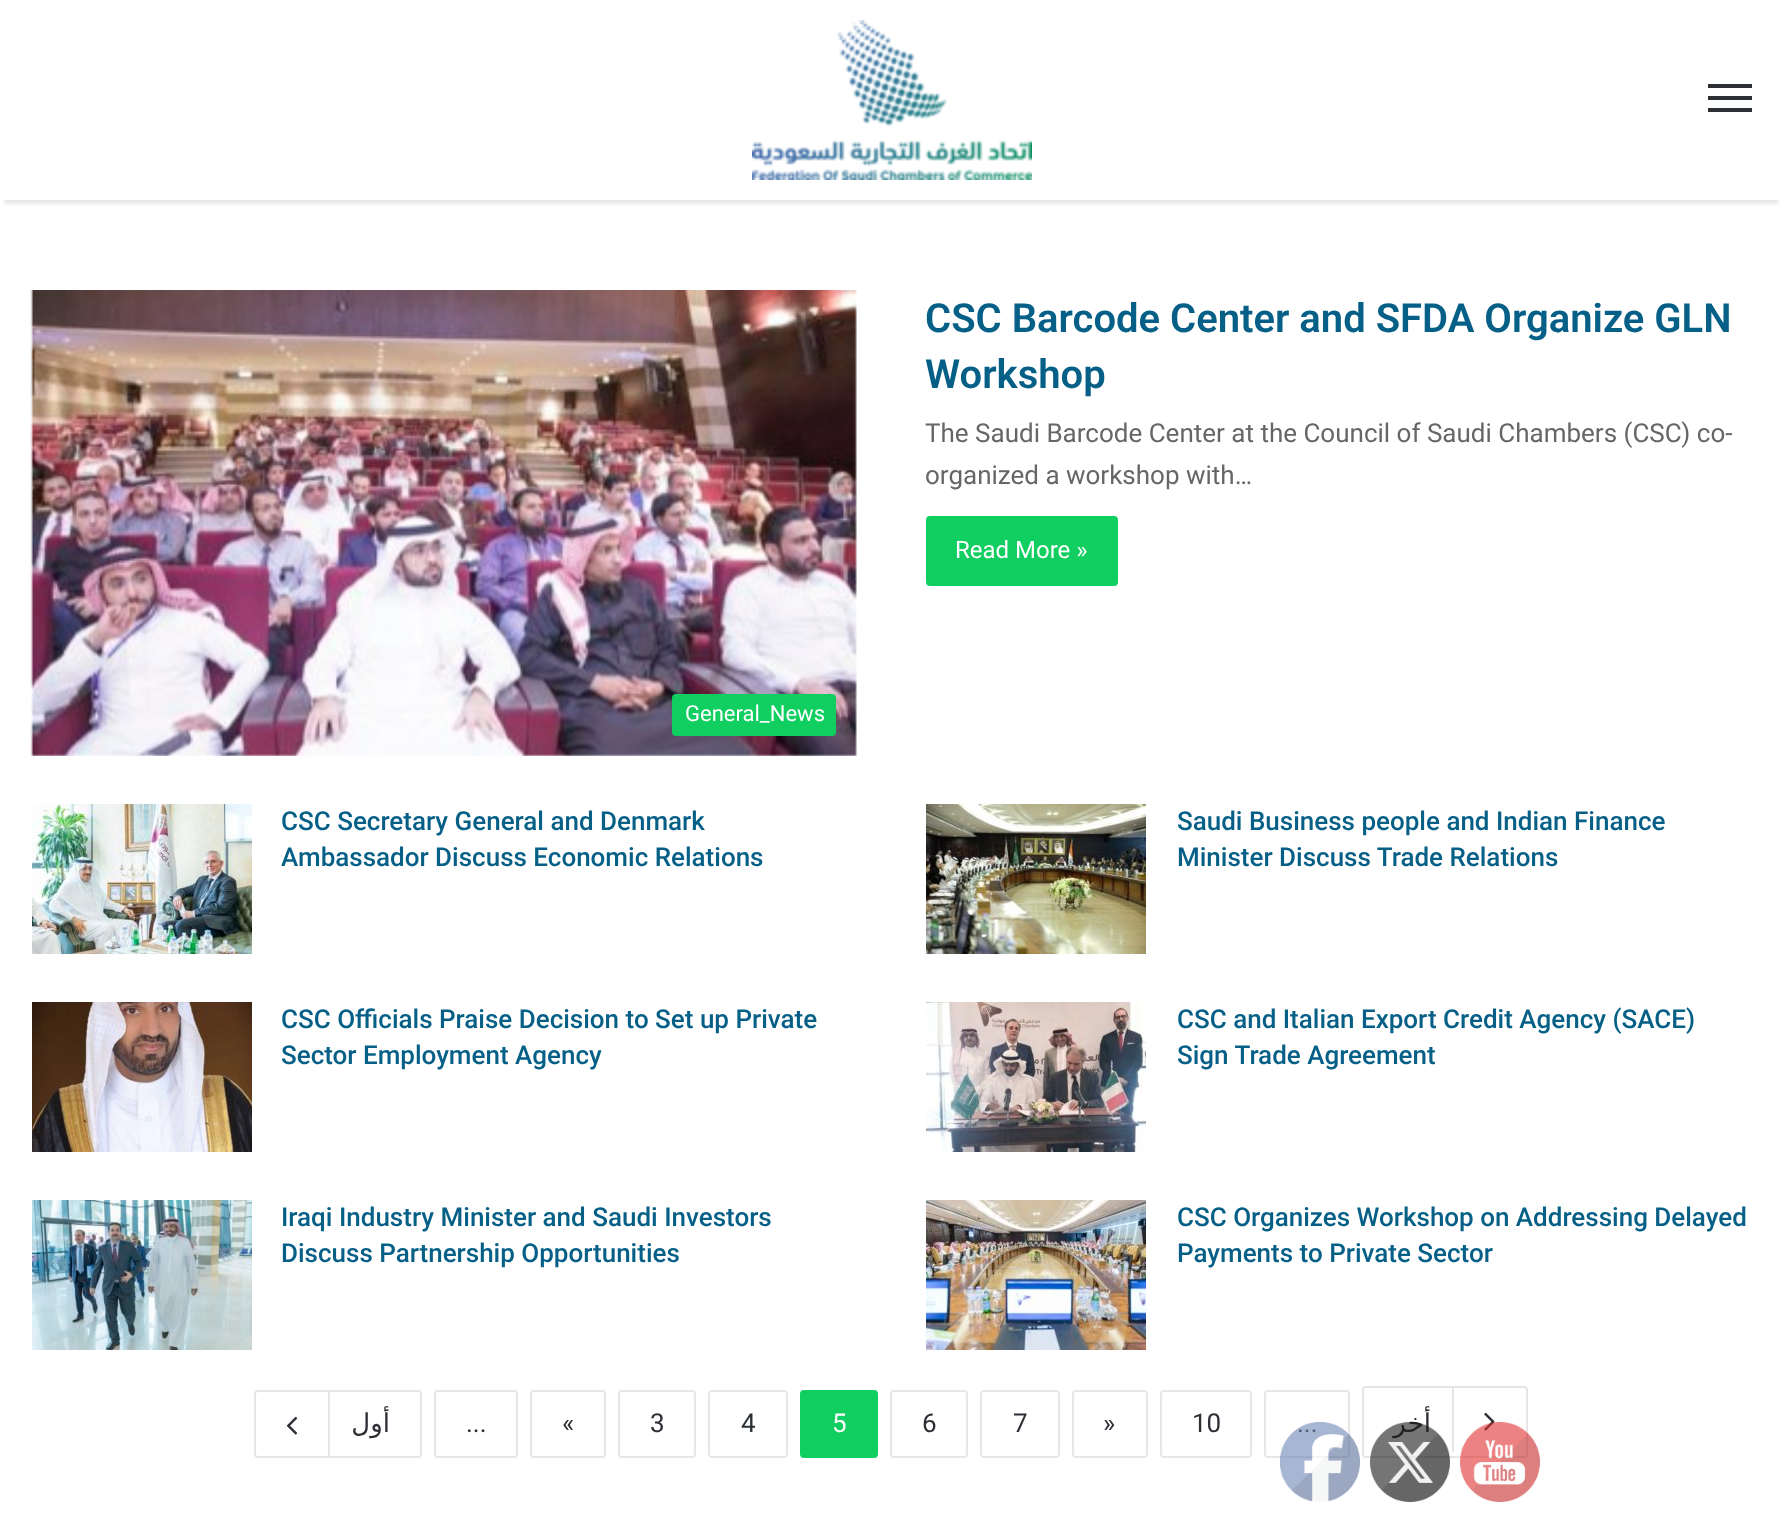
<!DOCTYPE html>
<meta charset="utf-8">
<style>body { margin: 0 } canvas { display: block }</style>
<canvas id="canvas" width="1781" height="1515"></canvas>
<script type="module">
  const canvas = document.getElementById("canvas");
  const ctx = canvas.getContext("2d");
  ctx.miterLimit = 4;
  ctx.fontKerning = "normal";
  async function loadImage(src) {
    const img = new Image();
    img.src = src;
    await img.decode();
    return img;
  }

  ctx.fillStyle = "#ffffff";
  ctx.fillRect(0, 0, 1781, 1515);
  ctx.save();
  ctx.beginPath();
  ctx.rect(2, 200, 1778, 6);
  ctx.clip();
  ctx.fillStyle = "rgba(0, 0, 0, 0.1)";
  ctx.filter = "blur(2px)";
  ctx.beginPath();
  ctx.rect(4, 12, 1774, 192);
  ctx.fill();
  ctx.filter = "none";
  ctx.restore();
  ctx.drawImage(await loadImage("img1.png"), 752, 20, 280, 160);
  ctx.fillStyle = "#2c2f34";
  ctx.fillRect(1708, 96, 44, 4);
  ctx.fillRect(1708, 84, 44, 4);
  ctx.fillRect(1708, 108, 44, 4);
  ctx.font = "600 40px Roboto";
  ctx.fillStyle = "#055f86";
  ctx.fillText("CSC Barcode Center and SFDA Organize GLN", 925, 332);
  ctx.fillText("Workshop", 925, 388);
  ctx.font = "26px Roboto";
  ctx.fillStyle = "#666666";
  ctx.fillText("The Saudi Barcode Center at the Council of Saudi Chambers (CSC) co-", 925, 442);
  ctx.fillText("organized a workshop with…", 925, 484);
  ctx.fillStyle = "#10ce5f";
  ctx.beginPath();
  ctx.roundRect(926, 516, 192, 70, 4);
  ctx.fill();
  ctx.font = "24px Roboto";
  ctx.fillStyle = "#ffffff";
  ctx.fillText("Read More »", 955, 558);
  ctx.drawImage(await loadImage("img2.png"), 30, 290, 827, 466);
  ctx.fillStyle = "#10ce5f";
  ctx.beginPath();
  ctx.roundRect(672, 694, 164, 42, 4);
  ctx.fill();
  ctx.font = "22px Roboto";
  ctx.fillStyle = "#ffffff";
  ctx.fillText("General_News", 685, 721);
  ctx.drawImage(await loadImage("img3.png"), 32, 804, 220, 150);
  ctx.font = "500 26px Roboto";
  ctx.fillStyle = "#055f86";
  ctx.fillText("CSC Secretary General and Denmark", 281, 830);
  ctx.fillText("Ambassador Discuss Economic Relations", 281, 866);
  ctx.drawImage(await loadImage("img4.png"), 926, 804, 220, 150);
  ctx.fillText("Saudi Business people and Indian Finance", 1177, 830);
  ctx.fillText("Minister Discuss Trade Relations", 1177, 866);
  ctx.drawImage(await loadImage("img5.png"), 32, 1002, 220, 150);
  ctx.fillText("CSC Officials Praise Decision to Set up Private", 281, 1028);
  ctx.fillText("Sector Employment Agency", 281, 1064);
  ctx.drawImage(await loadImage("img6.png"), 926, 1002, 220, 150);
  ctx.fillText("CSC and Italian Export Credit Agency (SACE)", 1177, 1028);
  ctx.fillText("Sign Trade Agreement", 1177, 1064);
  ctx.drawImage(await loadImage("img7.png"), 32, 1200, 220, 150);
  ctx.fillText("Iraqi Industry Minister and Saudi Investors", 281, 1226);
  ctx.fillText("Discuss Partnership Opportunities", 281, 1262);
  ctx.drawImage(await loadImage("img8.png"), 926, 1200, 220, 150);
  ctx.fillText("CSC Organizes Workshop on Addressing Delayed", 1177, 1226);
  ctx.fillText("Payments to Private Sector", 1177, 1262);
  ctx.beginPath();
  ctx.roundRect(255, 1391, 166, 66, 3);
  ctx.strokeStyle = "#e6e6e6";
  ctx.lineWidth = 2;
  ctx.stroke();
  ctx.fillStyle = "#e6e6e6";
  ctx.fillRect(328, 1392, 2, 64);
  ctx.drawImage(await loadImage("img9.png"), 286, 1416, 12, 19);
  ctx.direction = "rtl";
  ctx.font = "26px DejaVu Sans";
  ctx.fillStyle = "#2c2f34";
  ctx.fillText("أول", 390, 1432);
  ctx.beginPath();
  ctx.roundRect(435, 1391, 82, 66, 3);
  ctx.stroke();
  ctx.direction = "ltr";
  ctx.font = "26px Roboto";
  ctx.fillText("...", 466, 1432);
  ctx.beginPath();
  ctx.roundRect(531, 1391, 74, 66, 3);
  ctx.stroke();
  ctx.fillText("«", 562, 1432);
  ctx.beginPath();
  ctx.roundRect(619, 1391, 76, 66, 3);
  ctx.stroke();
  ctx.fillText("3", 650, 1432);
  ctx.beginPath();
  ctx.roundRect(709, 1391, 78, 66, 3);
  ctx.stroke();
  ctx.fillText("4", 741, 1432);
  ctx.fillStyle = "#10ce5f";
  ctx.beginPath();
  ctx.roundRect(801, 1391, 76, 66, 3);
  ctx.fill();
  ctx.strokeStyle = "#10ce5f";
  ctx.stroke();
  ctx.fillStyle = "#ffffff";
  ctx.fillText("5", 832, 1432);
  ctx.beginPath();
  ctx.roundRect(891, 1391, 76, 66, 3);
  ctx.strokeStyle = "#e6e6e6";
  ctx.stroke();
  ctx.fillStyle = "#2c2f34";
  ctx.fillText("6", 922, 1432);
  ctx.beginPath();
  ctx.roundRect(981, 1391, 78, 66, 3);
  ctx.stroke();
  ctx.fillText("7", 1013, 1432);
  ctx.beginPath();
  ctx.roundRect(1073, 1391, 74, 66, 3);
  ctx.stroke();
  ctx.fillText("»", 1103, 1432);
  ctx.beginPath();
  ctx.roundRect(1161, 1391, 90, 66, 3);
  ctx.stroke();
  ctx.fillText("10", 1192, 1432);
  ctx.beginPath();
  ctx.roundRect(1265, 1391, 84, 66, 3);
  ctx.stroke();
  ctx.fillText("...", 1297, 1432);
  ctx.beginPath();
  ctx.roundRect(1363, 1387, 164, 70, 3);
  ctx.stroke();
  ctx.direction = "rtl";
  ctx.font = "26px DejaVu Sans";
  ctx.fillText("أخر", 1431, 1432);
  ctx.fillStyle = "#e6e6e6";
  ctx.fillRect(1452, 1388, 2, 64);
  ctx.drawImage(await loadImage("img10.png"), 1484, 1412, 11, 19);
  ctx.drawImage(await loadImage("img11.png"), 1280, 1422, 80, 80);
  ctx.drawImage(await loadImage("img12.png"), 1370, 1422, 80, 80);
  ctx.drawImage(await loadImage("img13.png"), 1460, 1422, 80, 80);
</script>
